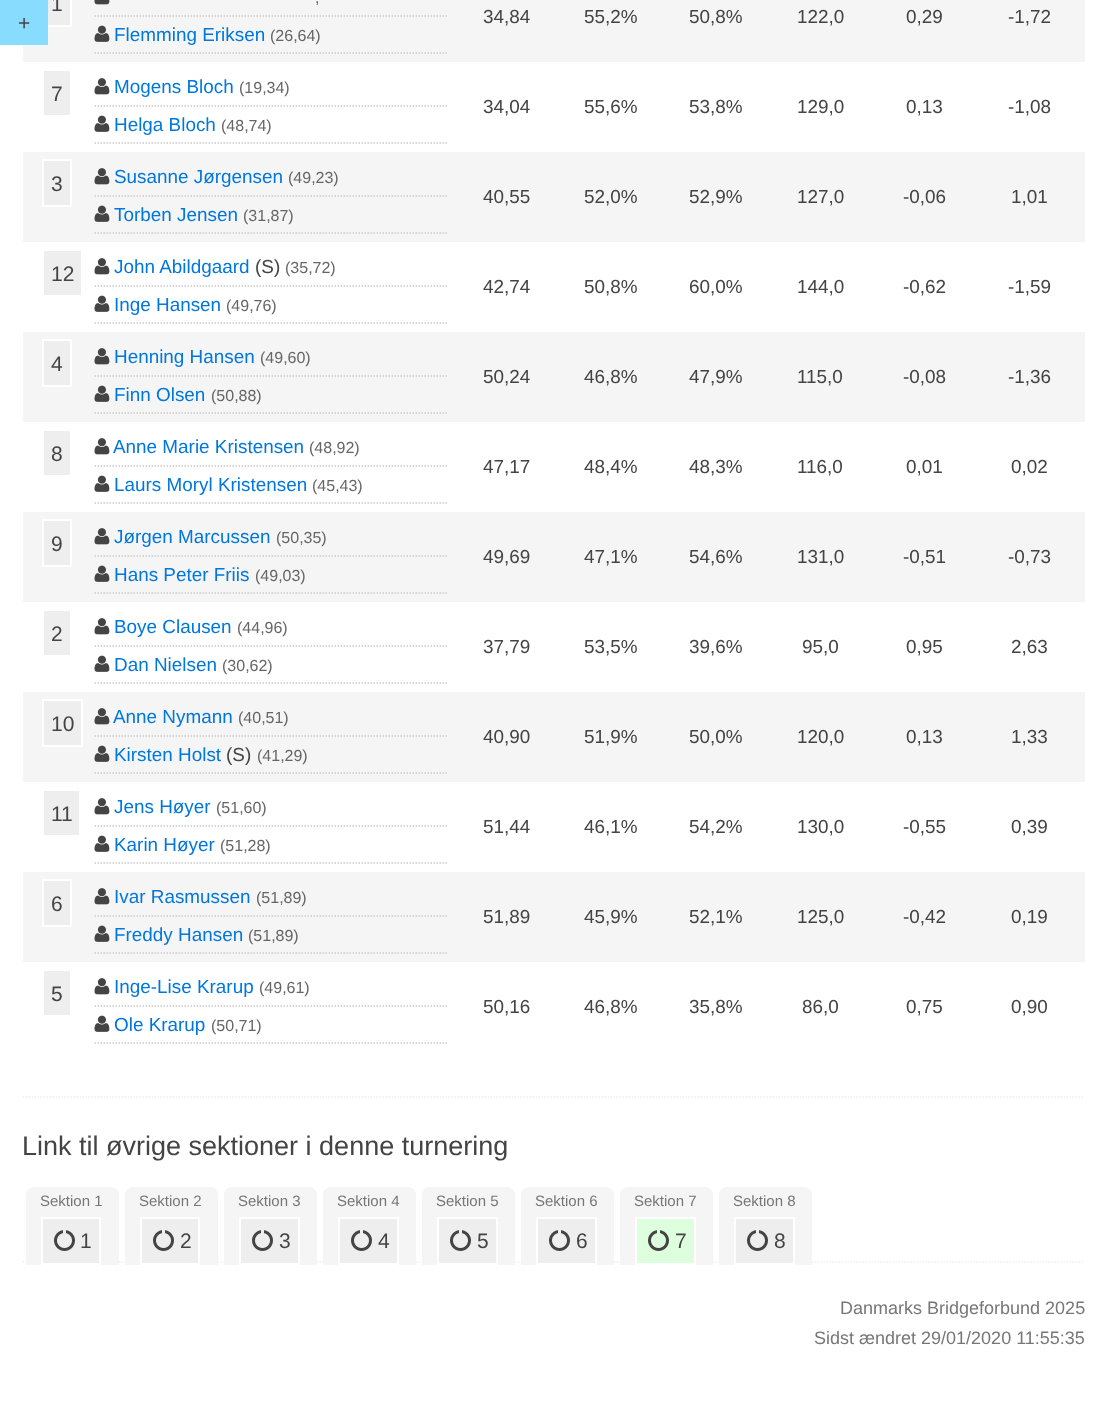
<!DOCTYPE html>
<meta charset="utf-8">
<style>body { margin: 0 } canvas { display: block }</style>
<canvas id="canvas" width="1106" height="1413"></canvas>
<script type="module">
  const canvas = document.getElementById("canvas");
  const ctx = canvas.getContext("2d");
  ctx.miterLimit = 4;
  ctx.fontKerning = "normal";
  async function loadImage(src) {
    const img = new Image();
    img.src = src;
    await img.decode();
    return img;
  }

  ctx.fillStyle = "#ffffff";
  ctx.fillRect(0, 0, 1106, 1413);
  ctx.fillStyle = "#f5f5f5";
  ctx.fillRect(23, 0, 1062, 62);
  ctx.fillStyle = "#eeeeee";
  ctx.fillRect(48, 0, 22, 25);
  ctx.strokeStyle = "#ffffff";
  ctx.lineWidth = 2;
  ctx.strokeRect(43, -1, 28, 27);
  ctx.font = "21px Liberation Sans";
  ctx.fillStyle = "#444444";
  ctx.fillText("1", 51, 11);
  ctx.beginPath();
  ctx.moveTo(94.5, 16);
  ctx.lineTo(448.5, 16);
  ctx.strokeStyle = "#cccccc";
  ctx.lineWidth = 1.5;
  ctx.setLineDash([1.5, 1.5]);
  ctx.stroke();
  ctx.drawImage(await loadImage("img1.png"), 94, 0, 16, 5);
  ctx.font = "16px Liberation Sans";
  ctx.fillStyle = "#666666";
  ctx.fillText(",", 315, 3);
  ctx.beginPath();
  ctx.moveTo(94.5, 53);
  ctx.lineTo(448.5, 53);
  ctx.stroke();
  ctx.drawImage(await loadImage("img2.png"), 94, 25, 16, 17);
  ctx.font = "18.9px Liberation Sans";
  ctx.fillStyle = "#0077dd";
  ctx.fillText("Flemming Eriksen", 114, 41);
  ctx.font = "16px Liberation Sans";
  ctx.fillStyle = "#666666";
  ctx.fillText("(26,64)", 270, 41);
  ctx.font = "18.9px Liberation Sans";
  ctx.fillStyle = "#444444";
  ctx.fillText("34,84", 483, 23);
  ctx.fillText("55,2%", 584, 23);
  ctx.fillText("50,8%", 689, 23);
  ctx.fillText("122,0", 797, 23);
  ctx.fillText("0,29", 906, 23);
  ctx.fillText("-1,72", 1008, 23);
  ctx.fillStyle = "#eeeeee";
  ctx.fillRect(44, 71, 26, 44);
  ctx.font = "21px Liberation Sans";
  ctx.fillStyle = "#444444";
  ctx.fillText("7", 51, 101);
  ctx.beginPath();
  ctx.moveTo(94.5, 106);
  ctx.lineTo(448.5, 106);
  ctx.stroke();
  ctx.drawImage(await loadImage("img3.png"), 94, 78, 16, 17);
  ctx.font = "18.9px Liberation Sans";
  ctx.fillStyle = "#0077dd";
  ctx.fillText("Mogens Bloch", 114, 93);
  ctx.font = "16px Liberation Sans";
  ctx.fillStyle = "#666666";
  ctx.fillText("(19,34)", 239, 93);
  ctx.beginPath();
  ctx.moveTo(94.5, 143);
  ctx.lineTo(448.5, 143);
  ctx.stroke();
  ctx.drawImage(await loadImage("img4.png"), 94, 115, 16, 17);
  ctx.font = "18.9px Liberation Sans";
  ctx.fillStyle = "#0077dd";
  ctx.fillText("Helga Bloch", 114, 131);
  ctx.font = "16px Liberation Sans";
  ctx.fillStyle = "#666666";
  ctx.fillText("(48,74)", 221, 131);
  ctx.font = "18.9px Liberation Sans";
  ctx.fillStyle = "#444444";
  ctx.fillText("34,04", 483, 113);
  ctx.fillText("55,6%", 584, 113);
  ctx.fillText("53,8%", 689, 113);
  ctx.fillText("129,0", 797, 113);
  ctx.fillText("0,13", 906, 113);
  ctx.fillText("-1,08", 1008, 113);
  ctx.fillStyle = "#f5f5f5";
  ctx.fillRect(23, 152, 1062, 90);
  ctx.fillStyle = "#eeeeee";
  ctx.beginPath();
  ctx.rect(43, 160, 28, 46);
  ctx.fill();
  ctx.strokeStyle = "#ffffff";
  ctx.lineWidth = 2;
  ctx.setLineDash([]);
  ctx.stroke();
  ctx.font = "21px Liberation Sans";
  ctx.fillStyle = "#444444";
  ctx.fillText("3", 51, 191);
  ctx.beginPath();
  ctx.moveTo(94.5, 196);
  ctx.lineTo(448.5, 196);
  ctx.strokeStyle = "#cccccc";
  ctx.lineWidth = 1.5;
  ctx.setLineDash([1.5, 1.5]);
  ctx.stroke();
  ctx.drawImage(await loadImage("img5.png"), 94, 168, 16, 17);
  ctx.font = "18.9px Liberation Sans";
  ctx.fillStyle = "#0077dd";
  ctx.fillText("Susanne Jørgensen", 114, 183);
  ctx.font = "16px Liberation Sans";
  ctx.fillStyle = "#666666";
  ctx.fillText("(49,23)", 288, 183);
  ctx.beginPath();
  ctx.moveTo(94.5, 233);
  ctx.lineTo(448.5, 233);
  ctx.stroke();
  ctx.drawImage(await loadImage("img2.png"), 94, 205, 16, 17);
  ctx.font = "18.9px Liberation Sans";
  ctx.fillStyle = "#0077dd";
  ctx.fillText("Torben Jensen", 114, 221);
  ctx.font = "16px Liberation Sans";
  ctx.fillStyle = "#666666";
  ctx.fillText("(31,87)", 243, 221);
  ctx.font = "18.9px Liberation Sans";
  ctx.fillStyle = "#444444";
  ctx.fillText("40,55", 483, 203);
  ctx.fillText("52,0%", 584, 203);
  ctx.fillText("52,9%", 689, 203);
  ctx.fillText("127,0", 797, 203);
  ctx.fillText("-0,06", 903, 203);
  ctx.fillText("1,01", 1011, 203);
  ctx.fillStyle = "#eeeeee";
  ctx.fillRect(44, 251, 37, 44);
  ctx.font = "21px Liberation Sans";
  ctx.fillStyle = "#444444";
  ctx.fillText("12", 51, 281);
  ctx.beginPath();
  ctx.moveTo(94.5, 286);
  ctx.lineTo(448.5, 286);
  ctx.stroke();
  ctx.drawImage(await loadImage("img3.png"), 94, 258, 16, 17);
  ctx.font = "18.9px Liberation Sans";
  ctx.fillStyle = "#0077dd";
  ctx.fillText("John Abildgaard", 114, 273);
  ctx.fillStyle = "#444444";
  ctx.fillText("(S)", 255, 273);
  ctx.font = "16px Liberation Sans";
  ctx.fillStyle = "#666666";
  ctx.fillText("(35,72)", 285, 273);
  ctx.beginPath();
  ctx.moveTo(94.5, 323);
  ctx.lineTo(448.5, 323);
  ctx.stroke();
  ctx.drawImage(await loadImage("img4.png"), 94, 295, 16, 17);
  ctx.font = "18.9px Liberation Sans";
  ctx.fillStyle = "#0077dd";
  ctx.fillText("Inge Hansen", 114, 311);
  ctx.font = "16px Liberation Sans";
  ctx.fillStyle = "#666666";
  ctx.fillText("(49,76)", 226, 311);
  ctx.font = "18.9px Liberation Sans";
  ctx.fillStyle = "#444444";
  ctx.fillText("42,74", 483, 293);
  ctx.fillText("50,8%", 584, 293);
  ctx.fillText("60,0%", 689, 293);
  ctx.fillText("144,0", 797, 293);
  ctx.fillText("-0,62", 903, 293);
  ctx.fillText("-1,59", 1008, 293);
  ctx.fillStyle = "#f5f5f5";
  ctx.fillRect(23, 332, 1062, 90);
  ctx.fillStyle = "#eeeeee";
  ctx.beginPath();
  ctx.rect(43, 340, 28, 46);
  ctx.fill();
  ctx.strokeStyle = "#ffffff";
  ctx.lineWidth = 2;
  ctx.setLineDash([]);
  ctx.stroke();
  ctx.font = "21px Liberation Sans";
  ctx.fillStyle = "#444444";
  ctx.fillText("4", 51, 371);
  ctx.beginPath();
  ctx.moveTo(94.5, 376);
  ctx.lineTo(448.5, 376);
  ctx.strokeStyle = "#cccccc";
  ctx.lineWidth = 1.5;
  ctx.setLineDash([1.5, 1.5]);
  ctx.stroke();
  ctx.drawImage(await loadImage("img5.png"), 94, 348, 16, 17);
  ctx.font = "18.9px Liberation Sans";
  ctx.fillStyle = "#0077dd";
  ctx.fillText("Henning Hansen", 114, 363);
  ctx.font = "16px Liberation Sans";
  ctx.fillStyle = "#666666";
  ctx.fillText("(49,60)", 260, 363);
  ctx.beginPath();
  ctx.moveTo(94.5, 413);
  ctx.lineTo(448.5, 413);
  ctx.stroke();
  ctx.drawImage(await loadImage("img2.png"), 94, 385, 16, 17);
  ctx.font = "18.9px Liberation Sans";
  ctx.fillStyle = "#0077dd";
  ctx.fillText("Finn Olsen", 114, 401);
  ctx.font = "16px Liberation Sans";
  ctx.fillStyle = "#666666";
  ctx.fillText("(50,88)", 211, 401);
  ctx.font = "18.9px Liberation Sans";
  ctx.fillStyle = "#444444";
  ctx.fillText("50,24", 483, 383);
  ctx.fillText("46,8%", 584, 383);
  ctx.fillText("47,9%", 689, 383);
  ctx.fillText("115,0", 797, 383);
  ctx.fillText("-0,08", 903, 383);
  ctx.fillText("-1,36", 1008, 383);
  ctx.fillStyle = "#eeeeee";
  ctx.fillRect(44, 431, 26, 44);
  ctx.font = "21px Liberation Sans";
  ctx.fillStyle = "#444444";
  ctx.fillText("8", 51, 461);
  ctx.beginPath();
  ctx.moveTo(94.5, 466);
  ctx.lineTo(448.5, 466);
  ctx.stroke();
  ctx.drawImage(await loadImage("img3.png"), 94, 438, 16, 17);
  ctx.font = "18.9px Liberation Sans";
  ctx.fillStyle = "#0077dd";
  ctx.fillText("Anne Marie Kristensen", 113, 453);
  ctx.font = "16px Liberation Sans";
  ctx.fillStyle = "#666666";
  ctx.fillText("(48,92)", 309, 453);
  ctx.beginPath();
  ctx.moveTo(94.5, 503);
  ctx.lineTo(448.5, 503);
  ctx.stroke();
  ctx.drawImage(await loadImage("img4.png"), 94, 475, 16, 17);
  ctx.font = "18.9px Liberation Sans";
  ctx.fillStyle = "#0077dd";
  ctx.fillText("Laurs Moryl Kristensen", 114, 491);
  ctx.font = "16px Liberation Sans";
  ctx.fillStyle = "#666666";
  ctx.fillText("(45,43)", 312, 491);
  ctx.font = "18.9px Liberation Sans";
  ctx.fillStyle = "#444444";
  ctx.fillText("47,17", 483, 473);
  ctx.fillText("48,4%", 584, 473);
  ctx.fillText("48,3%", 689, 473);
  ctx.fillText("116,0", 797, 473);
  ctx.fillText("0,01", 906, 473);
  ctx.fillText("0,02", 1011, 473);
  ctx.fillStyle = "#f5f5f5";
  ctx.fillRect(23, 512, 1062, 90);
  ctx.fillStyle = "#eeeeee";
  ctx.beginPath();
  ctx.rect(43, 520, 28, 46);
  ctx.fill();
  ctx.strokeStyle = "#ffffff";
  ctx.lineWidth = 2;
  ctx.setLineDash([]);
  ctx.stroke();
  ctx.font = "21px Liberation Sans";
  ctx.fillStyle = "#444444";
  ctx.fillText("9", 51, 551);
  ctx.beginPath();
  ctx.moveTo(94.5, 556);
  ctx.lineTo(448.5, 556);
  ctx.strokeStyle = "#cccccc";
  ctx.lineWidth = 1.5;
  ctx.setLineDash([1.5, 1.5]);
  ctx.stroke();
  ctx.drawImage(await loadImage("img5.png"), 94, 528, 16, 17);
  ctx.font = "18.9px Liberation Sans";
  ctx.fillStyle = "#0077dd";
  ctx.fillText("Jørgen Marcussen", 114, 543);
  ctx.font = "16px Liberation Sans";
  ctx.fillStyle = "#666666";
  ctx.fillText("(50,35)", 276, 543);
  ctx.beginPath();
  ctx.moveTo(94.5, 593);
  ctx.lineTo(448.5, 593);
  ctx.stroke();
  ctx.drawImage(await loadImage("img2.png"), 94, 565, 16, 17);
  ctx.font = "18.9px Liberation Sans";
  ctx.fillStyle = "#0077dd";
  ctx.fillText("Hans Peter Friis", 114, 581);
  ctx.font = "16px Liberation Sans";
  ctx.fillStyle = "#666666";
  ctx.fillText("(49,03)", 255, 581);
  ctx.font = "18.9px Liberation Sans";
  ctx.fillStyle = "#444444";
  ctx.fillText("49,69", 483, 563);
  ctx.fillText("47,1%", 584, 563);
  ctx.fillText("54,6%", 689, 563);
  ctx.fillText("131,0", 797, 563);
  ctx.fillText("-0,51", 903, 563);
  ctx.fillText("-0,73", 1008, 563);
  ctx.fillStyle = "#eeeeee";
  ctx.fillRect(44, 611, 26, 44);
  ctx.font = "21px Liberation Sans";
  ctx.fillStyle = "#444444";
  ctx.fillText("2", 51, 641);
  ctx.beginPath();
  ctx.moveTo(94.5, 646);
  ctx.lineTo(448.5, 646);
  ctx.stroke();
  ctx.drawImage(await loadImage("img3.png"), 94, 618, 16, 17);
  ctx.font = "18.9px Liberation Sans";
  ctx.fillStyle = "#0077dd";
  ctx.fillText("Boye Clausen", 114, 633);
  ctx.font = "16px Liberation Sans";
  ctx.fillStyle = "#666666";
  ctx.fillText("(44,96)", 237, 633);
  ctx.beginPath();
  ctx.moveTo(94.5, 683);
  ctx.lineTo(448.5, 683);
  ctx.stroke();
  ctx.drawImage(await loadImage("img4.png"), 94, 655, 16, 17);
  ctx.font = "18.9px Liberation Sans";
  ctx.fillStyle = "#0077dd";
  ctx.fillText("Dan Nielsen", 114, 671);
  ctx.font = "16px Liberation Sans";
  ctx.fillStyle = "#666666";
  ctx.fillText("(30,62)", 222, 671);
  ctx.font = "18.9px Liberation Sans";
  ctx.fillStyle = "#444444";
  ctx.fillText("37,79", 483, 653);
  ctx.fillText("53,5%", 584, 653);
  ctx.fillText("39,6%", 689, 653);
  ctx.fillText("95,0", 802, 653);
  ctx.fillText("0,95", 906, 653);
  ctx.fillText("2,63", 1011, 653);
  ctx.fillStyle = "#f5f5f5";
  ctx.fillRect(23, 692, 1062, 90);
  ctx.fillStyle = "#eeeeee";
  ctx.beginPath();
  ctx.rect(43, 700, 39, 46);
  ctx.fill();
  ctx.strokeStyle = "#ffffff";
  ctx.lineWidth = 2;
  ctx.setLineDash([]);
  ctx.stroke();
  ctx.font = "21px Liberation Sans";
  ctx.fillStyle = "#444444";
  ctx.fillText("10", 51, 731);
  ctx.beginPath();
  ctx.moveTo(94.5, 736);
  ctx.lineTo(448.5, 736);
  ctx.strokeStyle = "#cccccc";
  ctx.lineWidth = 1.5;
  ctx.setLineDash([1.5, 1.5]);
  ctx.stroke();
  ctx.drawImage(await loadImage("img5.png"), 94, 708, 16, 17);
  ctx.font = "18.9px Liberation Sans";
  ctx.fillStyle = "#0077dd";
  ctx.fillText("Anne Nymann", 113, 723);
  ctx.font = "16px Liberation Sans";
  ctx.fillStyle = "#666666";
  ctx.fillText("(40,51)", 238, 723);
  ctx.beginPath();
  ctx.moveTo(94.5, 773);
  ctx.lineTo(448.5, 773);
  ctx.stroke();
  ctx.drawImage(await loadImage("img2.png"), 94, 745, 16, 17);
  ctx.font = "18.9px Liberation Sans";
  ctx.fillStyle = "#0077dd";
  ctx.fillText("Kirsten Holst", 114, 761);
  ctx.fillStyle = "#444444";
  ctx.fillText("(S)", 226, 761);
  ctx.font = "16px Liberation Sans";
  ctx.fillStyle = "#666666";
  ctx.fillText("(41,29)", 257, 761);
  ctx.font = "18.9px Liberation Sans";
  ctx.fillStyle = "#444444";
  ctx.fillText("40,90", 483, 743);
  ctx.fillText("51,9%", 584, 743);
  ctx.fillText("50,0%", 689, 743);
  ctx.fillText("120,0", 797, 743);
  ctx.fillText("0,13", 906, 743);
  ctx.fillText("1,33", 1011, 743);
  ctx.fillStyle = "#eeeeee";
  ctx.fillRect(44, 791, 35, 44);
  ctx.font = "21px Liberation Sans";
  ctx.fillStyle = "#444444";
  ctx.fillText("11", 51, 821);
  ctx.beginPath();
  ctx.moveTo(94.5, 826);
  ctx.lineTo(448.5, 826);
  ctx.stroke();
  ctx.drawImage(await loadImage("img3.png"), 94, 798, 16, 17);
  ctx.font = "18.9px Liberation Sans";
  ctx.fillStyle = "#0077dd";
  ctx.fillText("Jens Høyer", 114, 813);
  ctx.font = "16px Liberation Sans";
  ctx.fillStyle = "#666666";
  ctx.fillText("(51,60)", 216, 813);
  ctx.beginPath();
  ctx.moveTo(94.5, 863);
  ctx.lineTo(448.5, 863);
  ctx.stroke();
  ctx.drawImage(await loadImage("img4.png"), 94, 835, 16, 17);
  ctx.font = "18.9px Liberation Sans";
  ctx.fillStyle = "#0077dd";
  ctx.fillText("Karin Høyer", 114, 851);
  ctx.font = "16px Liberation Sans";
  ctx.fillStyle = "#666666";
  ctx.fillText("(51,28)", 220, 851);
  ctx.font = "18.9px Liberation Sans";
  ctx.fillStyle = "#444444";
  ctx.fillText("51,44", 483, 833);
  ctx.fillText("46,1%", 584, 833);
  ctx.fillText("54,2%", 689, 833);
  ctx.fillText("130,0", 797, 833);
  ctx.fillText("-0,55", 903, 833);
  ctx.fillText("0,39", 1011, 833);
  ctx.fillStyle = "#f5f5f5";
  ctx.fillRect(23, 872, 1062, 90);
  ctx.fillStyle = "#eeeeee";
  ctx.beginPath();
  ctx.rect(43, 880, 28, 46);
  ctx.fill();
  ctx.strokeStyle = "#ffffff";
  ctx.lineWidth = 2;
  ctx.setLineDash([]);
  ctx.stroke();
  ctx.font = "21px Liberation Sans";
  ctx.fillStyle = "#444444";
  ctx.fillText("6", 51, 911);
  ctx.beginPath();
  ctx.moveTo(94.5, 916);
  ctx.lineTo(448.5, 916);
  ctx.strokeStyle = "#cccccc";
  ctx.lineWidth = 1.5;
  ctx.setLineDash([1.5, 1.5]);
  ctx.stroke();
  ctx.drawImage(await loadImage("img5.png"), 94, 888, 16, 17);
  ctx.font = "18.9px Liberation Sans";
  ctx.fillStyle = "#0077dd";
  ctx.fillText("Ivar Rasmussen", 114, 903);
  ctx.font = "16px Liberation Sans";
  ctx.fillStyle = "#666666";
  ctx.fillText("(51,89)", 256, 903);
  ctx.beginPath();
  ctx.moveTo(94.5, 953);
  ctx.lineTo(448.5, 953);
  ctx.stroke();
  ctx.drawImage(await loadImage("img2.png"), 94, 925, 16, 17);
  ctx.font = "18.9px Liberation Sans";
  ctx.fillStyle = "#0077dd";
  ctx.fillText("Freddy Hansen", 114, 941);
  ctx.font = "16px Liberation Sans";
  ctx.fillStyle = "#666666";
  ctx.fillText("(51,89)", 248, 941);
  ctx.font = "18.9px Liberation Sans";
  ctx.fillStyle = "#444444";
  ctx.fillText("51,89", 483, 923);
  ctx.fillText("45,9%", 584, 923);
  ctx.fillText("52,1%", 689, 923);
  ctx.fillText("125,0", 797, 923);
  ctx.fillText("-0,42", 903, 923);
  ctx.fillText("0,19", 1011, 923);
  ctx.fillStyle = "#eeeeee";
  ctx.fillRect(44, 971, 26, 44);
  ctx.font = "21px Liberation Sans";
  ctx.fillStyle = "#444444";
  ctx.fillText("5", 51, 1001);
  ctx.beginPath();
  ctx.moveTo(94.5, 1006);
  ctx.lineTo(448.5, 1006);
  ctx.stroke();
  ctx.drawImage(await loadImage("img3.png"), 94, 978, 16, 17);
  ctx.font = "18.9px Liberation Sans";
  ctx.fillStyle = "#0077dd";
  ctx.fillText("Inge-Lise Krarup", 114, 993);
  ctx.font = "16px Liberation Sans";
  ctx.fillStyle = "#666666";
  ctx.fillText("(49,61)", 259, 993);
  ctx.beginPath();
  ctx.moveTo(94.5, 1043);
  ctx.lineTo(448.5, 1043);
  ctx.stroke();
  ctx.drawImage(await loadImage("img4.png"), 94, 1015, 16, 17);
  ctx.font = "18.9px Liberation Sans";
  ctx.fillStyle = "#0077dd";
  ctx.fillText("Ole Krarup", 114, 1031);
  ctx.font = "16px Liberation Sans";
  ctx.fillStyle = "#666666";
  ctx.fillText("(50,71)", 211, 1031);
  ctx.font = "18.9px Liberation Sans";
  ctx.fillStyle = "#444444";
  ctx.fillText("50,16", 483, 1013);
  ctx.fillText("46,8%", 584, 1013);
  ctx.fillText("35,8%", 689, 1013);
  ctx.fillText("86,0", 802, 1013);
  ctx.fillText("0,75", 906, 1013);
  ctx.fillText("0,90", 1011, 1013);
  ctx.beginPath();
  ctx.moveTo(22.5, 1097);
  ctx.lineTo(1084.5, 1097);
  ctx.strokeStyle = "#eeeeee";
  ctx.stroke();
  ctx.font = "27px Liberation Sans";
  ctx.fillText("Link til øvrige sektioner i denne turnering", 22, 1155);
  ctx.beginPath();
  ctx.moveTo(22.5, 1262);
  ctx.lineTo(1084.5, 1262);
  ctx.stroke();
  ctx.fillStyle = "#f5f5f5";
  ctx.beginPath();
  ctx.roundRect(26, 1187, 93, 78, [8, 8, 0, 0]);
  ctx.fill();
  ctx.font = "15px Liberation Sans";
  ctx.fillStyle = "#777777";
  ctx.fillText("Sektion 1", 40, 1206);
  ctx.fillStyle = "#eeeeee";
  ctx.beginPath();
  ctx.rect(42, 1218, 58, 46);
  ctx.fill();
  ctx.strokeStyle = "#ffffff";
  ctx.lineWidth = 2;
  ctx.setLineDash([]);
  ctx.stroke();
  ctx.drawImage(await loadImage("img6.png"), 54, 1230, 21, 21);
  ctx.font = "21px Liberation Sans";
  ctx.fillStyle = "#444444";
  ctx.fillText("1", 80, 1248);
  ctx.fillStyle = "#f5f5f5";
  ctx.beginPath();
  ctx.roundRect(125, 1187, 93, 78, [8, 8, 0, 0]);
  ctx.fill();
  ctx.font = "15px Liberation Sans";
  ctx.fillStyle = "#777777";
  ctx.fillText("Sektion 2", 139, 1206);
  ctx.fillStyle = "#eeeeee";
  ctx.beginPath();
  ctx.rect(141, 1218, 58, 46);
  ctx.fill();
  ctx.stroke();
  ctx.drawImage(await loadImage("img6.png"), 153, 1230, 21, 21);
  ctx.font = "21px Liberation Sans";
  ctx.fillStyle = "#444444";
  ctx.fillText("2", 180, 1248);
  ctx.fillStyle = "#f5f5f5";
  ctx.beginPath();
  ctx.roundRect(224, 1187, 93, 78, [8, 8, 0, 0]);
  ctx.fill();
  ctx.font = "15px Liberation Sans";
  ctx.fillStyle = "#777777";
  ctx.fillText("Sektion 3", 238, 1206);
  ctx.fillStyle = "#eeeeee";
  ctx.beginPath();
  ctx.rect(240, 1218, 59, 46);
  ctx.fill();
  ctx.stroke();
  ctx.drawImage(await loadImage("img6.png"), 252, 1230, 21, 21);
  ctx.font = "21px Liberation Sans";
  ctx.fillStyle = "#444444";
  ctx.fillText("3", 279, 1248);
  ctx.fillStyle = "#f5f5f5";
  ctx.beginPath();
  ctx.roundRect(323, 1187, 93, 78, [8, 8, 0, 0]);
  ctx.fill();
  ctx.font = "15px Liberation Sans";
  ctx.fillStyle = "#777777";
  ctx.fillText("Sektion 4", 337, 1206);
  ctx.fillStyle = "#eeeeee";
  ctx.beginPath();
  ctx.rect(339, 1218, 59, 46);
  ctx.fill();
  ctx.stroke();
  ctx.drawImage(await loadImage("img6.png"), 351, 1230, 21, 21);
  ctx.font = "21px Liberation Sans";
  ctx.fillStyle = "#444444";
  ctx.fillText("4", 378, 1248);
  ctx.fillStyle = "#f5f5f5";
  ctx.beginPath();
  ctx.roundRect(422, 1187, 93, 78, [8, 8, 0, 0]);
  ctx.fill();
  ctx.font = "15px Liberation Sans";
  ctx.fillStyle = "#777777";
  ctx.fillText("Sektion 5", 436, 1206);
  ctx.fillStyle = "#eeeeee";
  ctx.beginPath();
  ctx.rect(438, 1218, 59, 46);
  ctx.fill();
  ctx.stroke();
  ctx.drawImage(await loadImage("img6.png"), 450, 1230, 21, 21);
  ctx.font = "21px Liberation Sans";
  ctx.fillStyle = "#444444";
  ctx.fillText("5", 477, 1248);
  ctx.fillStyle = "#f5f5f5";
  ctx.beginPath();
  ctx.roundRect(521, 1187, 93, 78, [8, 8, 0, 0]);
  ctx.fill();
  ctx.font = "15px Liberation Sans";
  ctx.fillStyle = "#777777";
  ctx.fillText("Sektion 6", 535, 1206);
  ctx.fillStyle = "#eeeeee";
  ctx.beginPath();
  ctx.rect(537, 1218, 59, 46);
  ctx.fill();
  ctx.stroke();
  ctx.drawImage(await loadImage("img6.png"), 549, 1230, 21, 21);
  ctx.font = "21px Liberation Sans";
  ctx.fillStyle = "#444444";
  ctx.fillText("6", 576, 1248);
  ctx.fillStyle = "#f5f5f5";
  ctx.beginPath();
  ctx.roundRect(620, 1187, 93, 78, [8, 8, 0, 0]);
  ctx.fill();
  ctx.font = "15px Liberation Sans";
  ctx.fillStyle = "#777777";
  ctx.fillText("Sektion 7", 634, 1206);
  ctx.fillStyle = "#ddffdd";
  ctx.beginPath();
  ctx.rect(636, 1218, 59, 46);
  ctx.fill();
  ctx.stroke();
  ctx.drawImage(await loadImage("img7.png"), 648, 1230, 21, 21);
  ctx.font = "21px Liberation Sans";
  ctx.fillStyle = "#444444";
  ctx.fillText("7", 675, 1248);
  ctx.fillStyle = "#f5f5f5";
  ctx.beginPath();
  ctx.roundRect(719, 1187, 93, 78, [8, 8, 0, 0]);
  ctx.fill();
  ctx.font = "15px Liberation Sans";
  ctx.fillStyle = "#777777";
  ctx.fillText("Sektion 8", 733, 1206);
  ctx.fillStyle = "#eeeeee";
  ctx.beginPath();
  ctx.rect(735, 1218, 59, 46);
  ctx.fill();
  ctx.stroke();
  ctx.drawImage(await loadImage("img6.png"), 747, 1230, 21, 21);
  ctx.font = "21px Liberation Sans";
  ctx.fillStyle = "#444444";
  ctx.fillText("8", 774, 1248);
  ctx.font = "18px Liberation Sans";
  ctx.fillStyle = "#777777";
  ctx.fillText("Danmarks Bridgeforbund 2025", 840, 1314);
  ctx.fillText("Sidst ændret 29/01/2020 11:55:35", 814, 1344);
  ctx.fillStyle = "#88ddff";
  ctx.fillRect(0, 0, 48, 45);
  ctx.font = "21px Liberation Sans";
  ctx.fillStyle = "#444444";
  ctx.fillText("+", 18, 30);
</script>
